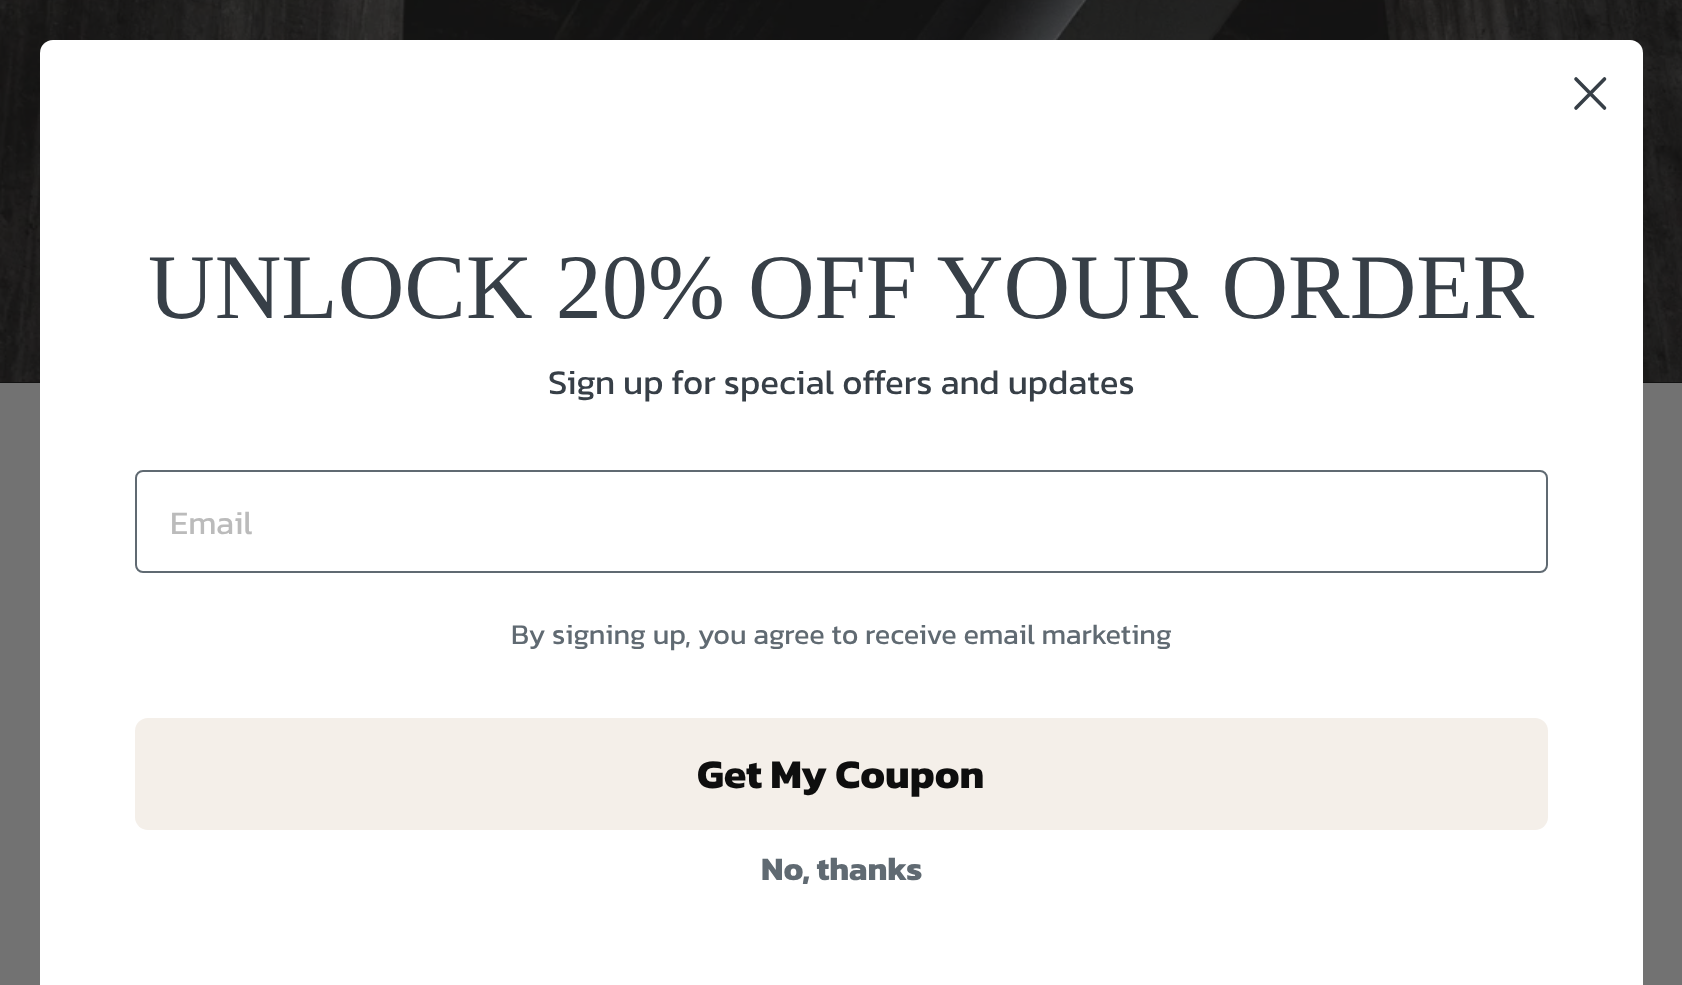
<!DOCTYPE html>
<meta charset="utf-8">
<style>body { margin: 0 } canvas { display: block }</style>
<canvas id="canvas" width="1682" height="985"></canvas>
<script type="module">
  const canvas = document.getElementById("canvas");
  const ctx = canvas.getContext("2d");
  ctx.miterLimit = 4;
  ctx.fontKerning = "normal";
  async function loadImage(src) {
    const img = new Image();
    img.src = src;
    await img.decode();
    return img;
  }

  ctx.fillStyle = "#727272";
  ctx.fillRect(0, 0, 1682, 985);
  ctx.fillStyle = "#121212";
  ctx.fillRect(0, 382, 1682, 1);
  ctx.drawImage(await loadImage("img1.png"), 0, 0, 1682, 382);
  ctx.fillStyle = "#ffffff";
  ctx.beginPath();
  ctx.roundRect(40, 40, 1603, 945, [13, 13, 0, 0]);
  ctx.fill();
  ctx.beginPath();
  ctx.moveTo(1576, 79);
  ctx.lineTo(1604.5, 108);
  ctx.moveTo(1576, 108);
  ctx.lineTo(1604.5, 79);
  ctx.closePath();
  ctx.strokeStyle = "#373f47";
  ctx.lineWidth = 3.6;
  ctx.lineCap = "round";
  ctx.lineJoin = "round";
  ctx.stroke();
  ctx.font = "92.3px Liberation Serif";
  ctx.fillStyle = "#373f47";
  ctx.fillText("UNLOCK 20% OFF YOUR ORDER", 148, 318);
  ctx.font = "34.9px Kanit";
  ctx.fillText("Sign up for special offers and updates", 548, 394);
  ctx.beginPath();
  ctx.roundRect(136, 471, 1411, 101, 7);
  ctx.strokeStyle = "#606a72";
  ctx.lineWidth = 2;
  ctx.lineJoin = "miter";
  ctx.stroke();
  ctx.font = "33px Kanit";
  ctx.fillStyle = "#bbbbbb";
  ctx.fillText("Email", 170, 534);
  ctx.font = "28.75px Kanit";
  ctx.fillStyle = "#606a72";
  ctx.fillText("By signing up, you agree to receive email marketing", 511, 644);
  ctx.fillStyle = "#f4efe9";
  ctx.beginPath();
  ctx.roundRect(135, 718, 1413, 112, 13);
  ctx.fill();
  ctx.font = "bold 41px Kanit";
  ctx.fillStyle = "#0e0e0e";
  ctx.fillText("Get My Coupon", 697, 788);
  ctx.font = "bold 33px Kanit";
  ctx.fillStyle = "#606a72";
  ctx.fillText("No, thanks", 761, 880);
</script>
